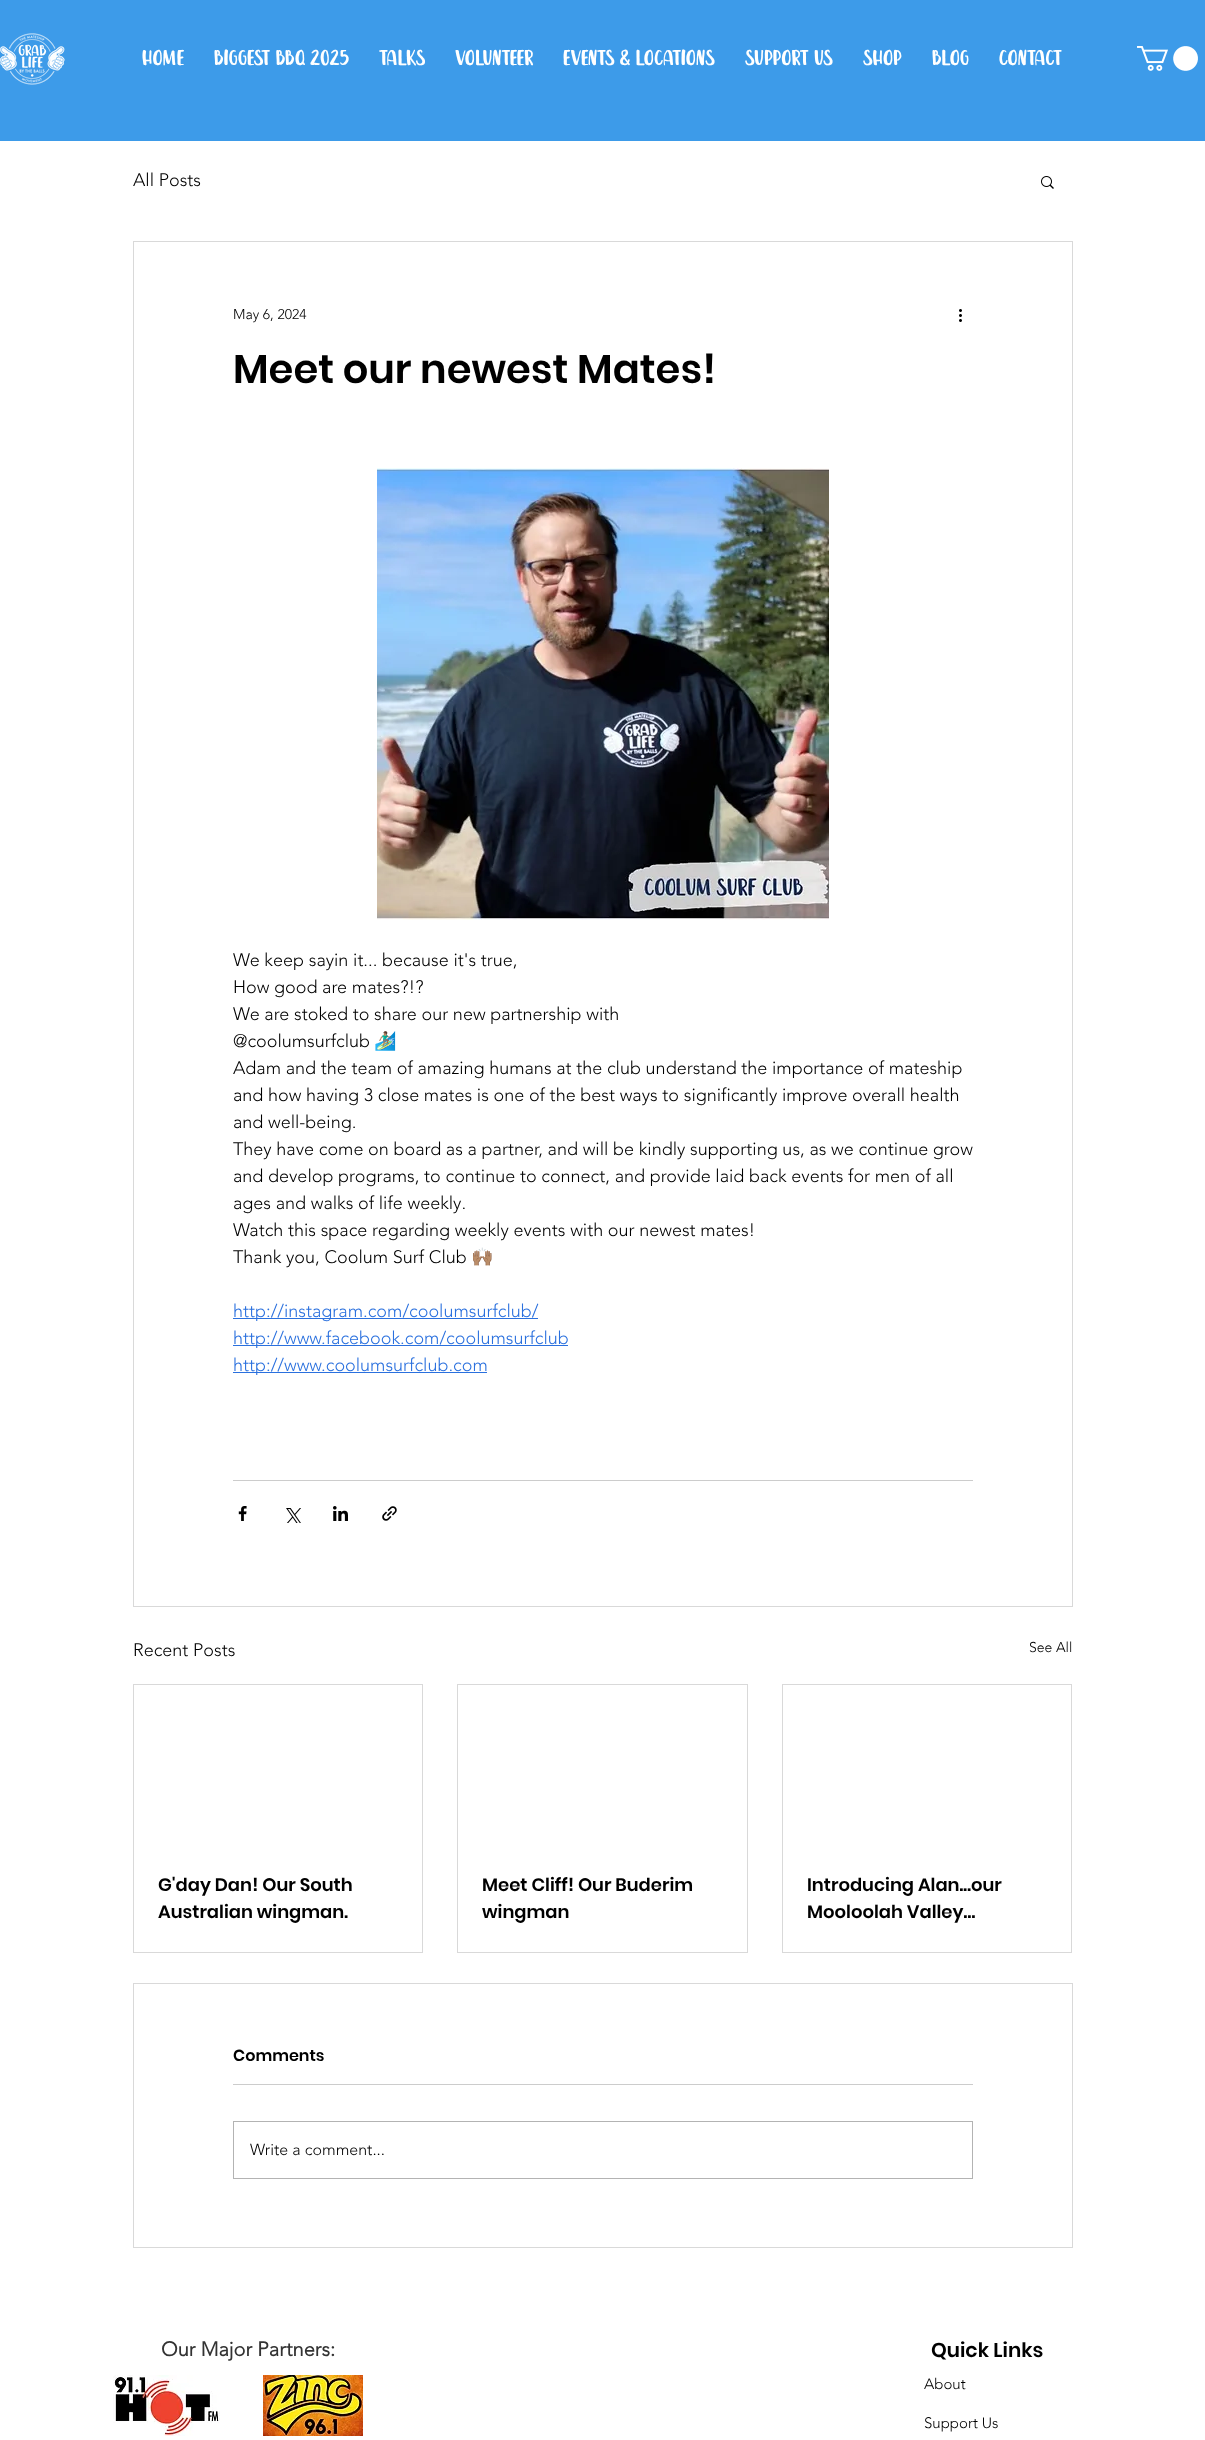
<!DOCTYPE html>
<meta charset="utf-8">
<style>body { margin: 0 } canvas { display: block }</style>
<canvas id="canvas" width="1205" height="2440"></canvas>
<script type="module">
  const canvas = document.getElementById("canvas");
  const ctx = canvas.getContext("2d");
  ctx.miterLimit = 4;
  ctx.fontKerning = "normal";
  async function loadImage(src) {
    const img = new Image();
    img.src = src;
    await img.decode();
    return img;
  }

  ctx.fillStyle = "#ffffff";
  ctx.fillRect(0, 0, 1205, 2440);
  ctx.fillStyle = "#3d9be9";
  ctx.fillRect(0, 0, 1205, 141);
  ctx.drawImage(await loadImage("img1.png"), 0, 33, 65, 52);
  ctx.font = "21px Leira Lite";
  ctx.fillStyle = "#ffffff";
  ctx.fillText("Home", 142, 65);
  ctx.fillText("Biggest BBQ 2025", 214, 65);
  ctx.fillText("Talks", 379, 65);
  ctx.fillText("Volunteer", 455, 65);
  ctx.fillText("Events & Locations", 563, 65);
  ctx.fillText("Support Us", 745, 65);
  ctx.fillText("Shop", 863, 65);
  ctx.fillText("Blog", 932, 65);
  ctx.fillText("Contact", 999, 65);
  ctx.drawImage(await loadImage("img2.png"), 1137, 46, 61, 25);
  ctx.font = "300 18px 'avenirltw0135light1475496'";
  ctx.fillStyle = "#000000";
  ctx.fillText("All Posts", 133, 186);
  ctx.drawImage(await loadImage("img3.png"), 1041, 176, 13, 13);
  ctx.strokeStyle = "#d9d9d9";
  ctx.strokeRect(133.5, 241.5, 939, 1365);
  ctx.font = "300 14px 'avenirltw0135light1475496'";
  ctx.fillText("May 6, 2024", 233, 319);
  ctx.drawImage(await loadImage("img4.png"), 959, 309, 3, 13);
  ctx.font = "600 40px Poppins";
  ctx.fillText("Meet our newest Mates!", 233, 383);
  ctx.drawImage(await loadImage("img5.png"), 377, 468, 452, 452);
  ctx.font = "300 18px 'avenirltw0135light1475496'";
  ctx.fillText("We keep sayin it... because it's true,", 233, 966);
  ctx.fillText("How good are mates?!?", 233, 993);
  ctx.fillText("We are stoked to share our new partnership with", 233, 1020);
  ctx.fillText("@coolumsurfclub", 233, 1047);
  ctx.font = "18px Noto Color Emoji";
  ctx.fillText("🏄🏽‍♂️", 374, 1047);
  ctx.font = "300 18px 'avenirltw0135light1475496'";
  ctx.fillText("Adam and the team of amazing humans at the club understand the importance of mateship", 233, 1074);
  ctx.fillText("and how having 3 close mates is one of the best ways to significantly improve overall health", 233, 1101);
  ctx.fillText("and well-being.", 233, 1128);
  ctx.fillText("They have come on board as a partner, and will be kindly supporting us, as we continue grow", 233, 1155);
  ctx.fillText("and develop programs, to continue to connect, and provide laid back events for men of all", 233, 1182);
  ctx.fillText("ages and walks of life weekly.", 233, 1209);
  ctx.fillText("Watch this space regarding weekly events with our newest mates!", 233, 1236);
  ctx.fillText("Thank you, Coolum Surf Club", 233, 1263);
  ctx.font = "18px Noto Color Emoji";
  ctx.fillText("🙌🏽", 471, 1263);
  ctx.fillStyle = "#2a70de";
  ctx.fillRect(233, 1318, 305, 1);
  ctx.font = "300 18px 'avenirltw0135light1475496'";
  ctx.fillText("http://instagram.com/coolumsurfclub/", 233, 1317);
  ctx.fillRect(233, 1345, 335, 1);
  ctx.fillText("http://www.facebook.com/coolumsurfclub", 233, 1344);
  ctx.fillRect(233, 1372, 254, 1);
  ctx.fillText("http://www.coolumsurfclub.com", 233, 1371);
  ctx.fillStyle = "#cccccc";
  ctx.fillRect(233, 1480, 740, 1);
  ctx.drawImage(await loadImage("img6.png"), 238, 1506, 9, 15);
  ctx.drawImage(await loadImage("img7.png"), 286, 1508, 15, 15);
  ctx.drawImage(await loadImage("img8.png"), 333, 1506, 15, 15);
  ctx.drawImage(await loadImage("img9.png"), 382, 1506, 15, 15);
  ctx.fillStyle = "#000000";
  ctx.fillText("Recent Posts", 133, 1656);
  ctx.font = "300 14px 'avenirltw0135light1475496'";
  ctx.fillText("See All", 1029, 1652);
  ctx.strokeRect(133.5, 1684.5, 289, 268);
  ctx.font = "600 18px Poppins";
  ctx.fillText("G'day Dan! Our South", 158, 1891);
  ctx.fillText("Australian wingman.", 158, 1918);
  ctx.strokeRect(457.5, 1684.5, 290, 268);
  ctx.fillText("Meet Cliff! Our Buderim", 482, 1891);
  ctx.fillText("wingman", 482, 1918);
  ctx.strokeRect(782.5, 1684.5, 289, 268);
  ctx.fillText("Introducing Alan...our", 807, 1891);
  ctx.fillText("Mooloolah Valley…", 807, 1918);
  ctx.strokeRect(133.5, 1983.5, 939, 264);
  ctx.font = "600 16px Poppins";
  ctx.fillText("Comments", 233, 2061);
  ctx.fillStyle = "#cccccc";
  ctx.fillRect(233, 2084, 740, 1);
  ctx.strokeStyle = "#b3b3b3";
  ctx.strokeRect(233.5, 2121.5, 739, 57);
  ctx.font = "300 16px 'avenirltw0135light1475496'";
  ctx.fillStyle = "#000000";
  ctx.fillText("Write a comment...", 250, 2155);
  ctx.font = "bold 20px 'avenirltw0135light1475496'";
  ctx.fillStyle = "#333333";
  ctx.fillText("Our Major Partners:", 161, 2356);
  ctx.drawImage(await loadImage("img10.png"), 113, 2375, 107, 61);
  ctx.drawImage(await loadImage("img11.png"), 263, 2375, 100, 61);
  ctx.font = "600 20px Poppins";
  ctx.fillStyle = "#000000";
  ctx.fillText("Quick Links", 931, 2357);
  ctx.font = "300 15px 'avenirltw0135light1475496'";
  ctx.fillText("About", 924, 2389);
  ctx.fillText("Support Us", 924, 2428);
</script>
